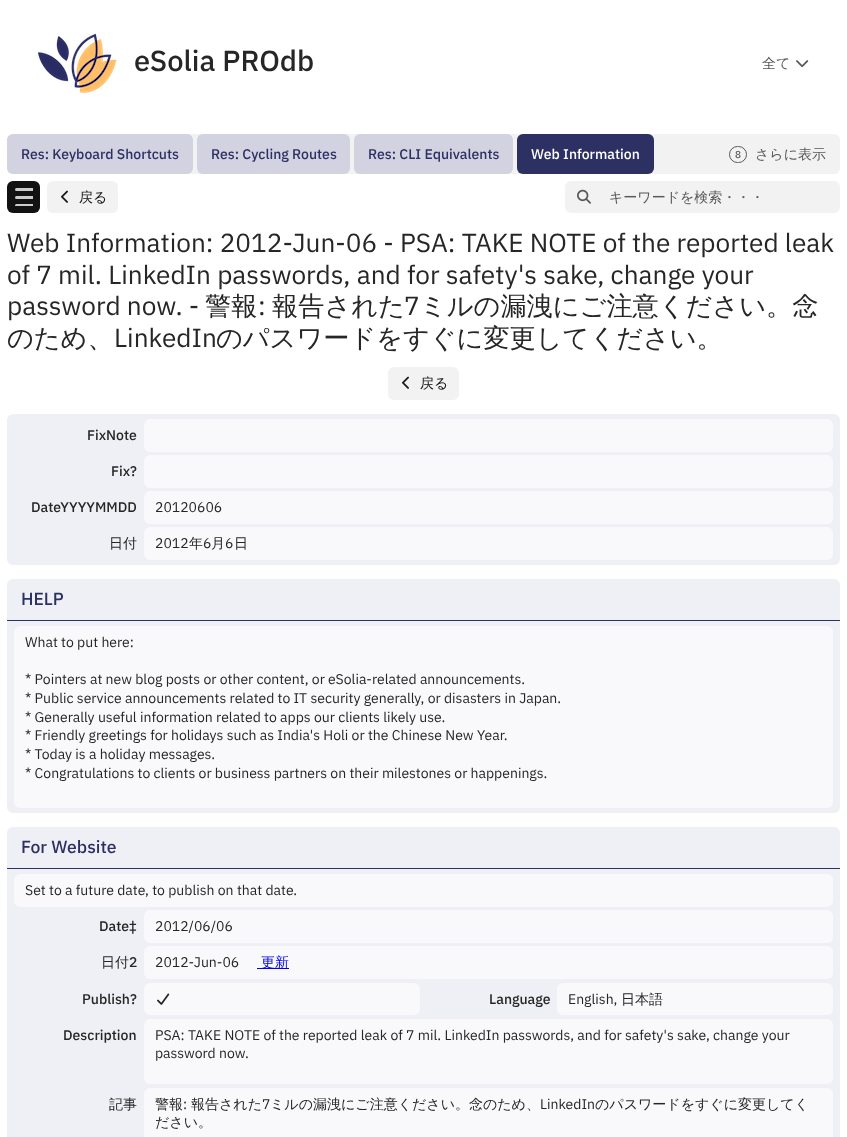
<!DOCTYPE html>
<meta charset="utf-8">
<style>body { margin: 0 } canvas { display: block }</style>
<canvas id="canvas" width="847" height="1137"></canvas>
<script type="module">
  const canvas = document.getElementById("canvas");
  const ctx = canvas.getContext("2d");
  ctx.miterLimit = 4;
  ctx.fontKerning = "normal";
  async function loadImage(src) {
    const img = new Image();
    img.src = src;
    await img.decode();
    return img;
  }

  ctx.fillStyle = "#ffffff";
  ctx.fillRect(0, 0, 847, 1137);
  ctx.drawImage(await loadImage("img1.png"), 36, 33, 83, 62);
  ctx.font = "500 29px IBM Plex Sans";
  ctx.fillStyle = "#262626";
  ctx.fillText("eSolia PROdb", 134, 71);
  ctx.font = "500 14px WenQuanYi Zen Hei";
  ctx.fillStyle = "#595959";
  ctx.fillText("全て", 762, 68);
  ctx.drawImage(await loadImage("img2.png"), 796, 60, 13, 8);
  ctx.fillStyle = "#f2f2f2";
  ctx.beginPath();
  ctx.roundRect(7, 134, 833, 40, 6);
  ctx.fill();
  ctx.fillStyle = "#d2d2e0";
  ctx.beginPath();
  ctx.roundRect(7, 134, 186, 40, 6);
  ctx.fill();
  ctx.font = "500 14px IBM Plex Sans";
  ctx.fillStyle = "#2d3062";
  ctx.fillText("Res: Keyboard Shortcuts", 21, 159);
  ctx.fillStyle = "#d2d2e0";
  ctx.beginPath();
  ctx.roundRect(197, 134, 153, 40, 6);
  ctx.fill();
  ctx.fillStyle = "#2d3062";
  ctx.fillText("Res: Cycling Routes", 211, 159);
  ctx.fillStyle = "#d2d2e0";
  ctx.beginPath();
  ctx.roundRect(354, 134, 159, 40, 6);
  ctx.fill();
  ctx.fillStyle = "#2d3062";
  ctx.fillText("Res: CLI Equivalents", 368, 159);
  ctx.beginPath();
  ctx.roundRect(517, 134, 137, 40, 6);
  ctx.fill();
  ctx.fillStyle = "#ffffff";
  ctx.fillText("Web Information", 531, 159);
  ctx.beginPath();
  ctx.roundRect(729.5, 146.5, 17, 16, 8);
  ctx.strokeStyle = "#595959";
  ctx.stroke();
  ctx.font = "500 10px IBM Plex Sans";
  ctx.fillStyle = "#595959";
  ctx.fillText("8", 735, 158);
  ctx.font = "500 14px WenQuanYi Zen Hei";
  ctx.fillText("さらに表示", 755, 159);
  ctx.fillStyle = "#121212";
  ctx.beginPath();
  ctx.roundRect(7, 181, 33, 32, 6);
  ctx.fill();
  ctx.save();
  ctx.beginPath();
  ctx.rect(15, 188, 18, 18);
  ctx.clip();
  ctx.fillStyle = "#cccccc";
  ctx.beginPath();
  ctx.roundRect(15, 188, 19, 3, 1.5);
  ctx.fill();
  ctx.beginPath();
  ctx.roundRect(15, 196, 19, 3, 1.5);
  ctx.fill();
  ctx.beginPath();
  ctx.roundRect(15, 204, 19, 3, 1.5);
  ctx.fill();
  ctx.restore();
  ctx.fillStyle = "#f2f2f2";
  ctx.beginPath();
  ctx.roundRect(47, 181, 71, 32, 6);
  ctx.fill();
  ctx.drawImage(await loadImage("img3.png"), 61, 190, 7, 13);
  ctx.fillStyle = "#181818";
  ctx.fillText("戻る", 79, 202);
  ctx.fillStyle = "#f2f2f2";
  ctx.beginPath();
  ctx.roundRect(566, 182, 273, 30, 5);
  ctx.fill();
  ctx.strokeStyle = "#f2f2f2";
  ctx.lineWidth = 2;
  ctx.stroke();
  ctx.drawImage(await loadImage("img4.png"), 577, 189, 14, 15);
  ctx.fillStyle = "#595959";
  ctx.fillText("キーワードを検索・・・", 609, 202);
  ctx.font = "26.2px IBM Plex Sans";
  ctx.fillStyle = "#262626";
  ctx.fillText("Web Information: 2012-Jun-06 - PSA: TAKE NOTE of the reported leak", 7, 252);
  ctx.fillText("of 7 mil. LinkedIn passwords, and for safety's sake, change your", 7, 284);
  ctx.fillText("password now. -", 7, 315);
  ctx.font = "500 26.2px WenQuanYi Zen Hei";
  ctx.fillText("警報", 205, 315);
  ctx.font = "26.2px IBM Plex Sans";
  ctx.fillText(":", 258, 315);
  ctx.font = "500 26.2px WenQuanYi Zen Hei";
  ctx.fillText("報告された", 272, 315);
  ctx.font = "26.2px IBM Plex Sans";
  ctx.fillText("7", 404, 315);
  ctx.font = "500 26.2px WenQuanYi Zen Hei";
  ctx.fillText("ミルの漏洩にご注意ください。念", 420, 315);
  ctx.fillText("のため、", 7, 347);
  ctx.font = "26.2px IBM Plex Sans";
  ctx.fillText("LinkedIn", 114, 347);
  ctx.font = "500 26.2px WenQuanYi Zen Hei";
  ctx.fillText("のパスワードをすぐに変更してください。", 216, 347);
  ctx.fillStyle = "#f2f2f2";
  ctx.beginPath();
  ctx.roundRect(388, 367, 71, 33, 6);
  ctx.fill();
  ctx.drawImage(await loadImage("img3.png"), 402, 376, 7, 13);
  ctx.font = "500 14px WenQuanYi Zen Hei";
  ctx.fillStyle = "#181818";
  ctx.fillText("戻る", 420, 388);
  ctx.fillStyle = "#eff0f5";
  ctx.beginPath();
  ctx.roundRect(7, 414, 833, 151, 6);
  ctx.fill();
  ctx.font = "500 14px IBM Plex Sans";
  ctx.fillStyle = "#262626";
  ctx.fillText("FixNote", 87, 440);
  ctx.fillStyle = "#f9f9fb";
  ctx.beginPath();
  ctx.roundRect(144, 419, 689, 33, 6);
  ctx.fill();
  ctx.fillStyle = "#262626";
  ctx.fillText("Fix?", 111, 476);
  ctx.fillStyle = "#f9f9fb";
  ctx.beginPath();
  ctx.roundRect(144, 455, 689, 33, 6);
  ctx.fill();
  ctx.fillStyle = "#262626";
  ctx.fillText("DateYYYYMMDD", 31, 512);
  ctx.fillStyle = "#f9f9fb";
  ctx.beginPath();
  ctx.roundRect(144, 491, 689, 33, 6);
  ctx.fill();
  ctx.font = "14px IBM Plex Sans";
  ctx.fillStyle = "#262626";
  ctx.fillText("20120606", 155, 512);
  ctx.font = "500 14px WenQuanYi Zen Hei";
  ctx.fillText("日付", 109, 548);
  ctx.fillStyle = "#f9f9fb";
  ctx.beginPath();
  ctx.roundRect(144, 527, 689, 33, 6);
  ctx.fill();
  ctx.font = "14px IBM Plex Sans";
  ctx.fillStyle = "#262626";
  ctx.fillText("2012", 155, 548);
  ctx.font = "500 14px WenQuanYi Zen Hei";
  ctx.fillText("年", 189, 548);
  ctx.font = "14px IBM Plex Sans";
  ctx.fillText("6", 203, 548);
  ctx.font = "500 14px WenQuanYi Zen Hei";
  ctx.fillText("月", 211, 548);
  ctx.font = "14px IBM Plex Sans";
  ctx.fillText("6", 225, 548);
  ctx.font = "500 14px WenQuanYi Zen Hei";
  ctx.fillText("日", 234, 548);
  ctx.fillStyle = "#eff0f5";
  ctx.beginPath();
  ctx.roundRect(7, 579, 833, 234, 6);
  ctx.fill();
  ctx.fillStyle = "#2d3062";
  ctx.fillRect(7, 620, 833, 1);
  ctx.font = "500 17.5px IBM Plex Sans";
  ctx.fillText("HELP", 21, 605);
  ctx.fillStyle = "#f9f9fb";
  ctx.beginPath();
  ctx.roundRect(14, 626, 819, 182, 6);
  ctx.fill();
  ctx.font = "14px IBM Plex Sans";
  ctx.fillStyle = "#262626";
  ctx.fillText("What to put here:", 25, 647);
  ctx.fillText("* Pointers at new blog posts or other content, or eSolia-related announcements.", 25, 684);
  ctx.fillText("* Public service announcements related to IT security generally, or disasters in Japan.", 25, 703);
  ctx.fillText("* Generally useful information related to apps our clients likely use.", 25, 722);
  ctx.fillText("* Friendly greetings for holidays such as India's Holi or the Chinese New Year.", 25, 740);
  ctx.fillText("* Today is a holiday messages.", 25, 759);
  ctx.fillText("* Congratulations to clients or business partners on their milestones or happenings.", 25, 778);
  ctx.fillStyle = "#eff0f5";
  ctx.beginPath();
  ctx.roundRect(7, 827, 833, 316, 6);
  ctx.fill();
  ctx.fillStyle = "#2d3062";
  ctx.fillRect(7, 868, 833, 1);
  ctx.font = "500 17.5px IBM Plex Sans";
  ctx.fillText("For Website", 21, 853);
  ctx.fillStyle = "#f9f9fb";
  ctx.beginPath();
  ctx.roundRect(14, 874, 819, 33, 6);
  ctx.fill();
  ctx.font = "14px IBM Plex Sans";
  ctx.fillStyle = "#262626";
  ctx.fillText("Set to a future date, to publish on that date.", 25, 895);
  ctx.font = "500 14px IBM Plex Sans";
  ctx.fillText("Date‡", 99, 931);
  ctx.fillStyle = "#f9f9fb";
  ctx.beginPath();
  ctx.roundRect(144, 910, 689, 33, 6);
  ctx.fill();
  ctx.font = "14px IBM Plex Sans";
  ctx.fillStyle = "#262626";
  ctx.fillText("2012/06/06", 155, 931);
  ctx.font = "500 14px WenQuanYi Zen Hei";
  ctx.fillText("日付", 101, 967);
  ctx.font = "500 14px IBM Plex Sans";
  ctx.fillText("2", 129, 967);
  ctx.fillStyle = "#f9f9fb";
  ctx.beginPath();
  ctx.roundRect(144, 946, 689, 33, 6);
  ctx.fill();
  ctx.font = "14px IBM Plex Sans";
  ctx.fillStyle = "#262626";
  ctx.fillText("2012-Jun-06", 155, 967);
  ctx.fillStyle = "#0000ee";
  ctx.fillRect(257, 968, 32, 1);
  ctx.font = "500 14px WenQuanYi Zen Hei";
  ctx.fillText("更新", 261, 967);
  ctx.font = "500 14px IBM Plex Sans";
  ctx.fillStyle = "#262626";
  ctx.fillText("Publish?", 82, 1004);
  ctx.fillStyle = "#f9f9fb";
  ctx.beginPath();
  ctx.roundRect(144, 983, 276, 32, 6);
  ctx.fill();
  ctx.drawImage(await loadImage("img5.png"), 157, 993, 13, 12);
  ctx.fillStyle = "#262626";
  ctx.fillText("Language", 489, 1004);
  ctx.fillStyle = "#f9f9fb";
  ctx.beginPath();
  ctx.roundRect(557, 983, 276, 32, 6);
  ctx.fill();
  ctx.font = "14px IBM Plex Sans";
  ctx.fillStyle = "#262626";
  ctx.fillText("English,", 568, 1004);
  ctx.font = "500 14px WenQuanYi Zen Hei";
  ctx.fillText("日本語", 621, 1004);
  ctx.font = "500 14px IBM Plex Sans";
  ctx.fillText("Description", 63, 1040);
  ctx.fillStyle = "#f9f9fb";
  ctx.beginPath();
  ctx.roundRect(144, 1019, 689, 65, 6);
  ctx.fill();
  ctx.font = "14px IBM Plex Sans";
  ctx.fillStyle = "#262626";
  ctx.fillText("PSA: TAKE NOTE of the reported leak of 7 mil. LinkedIn passwords, and for safety's sake, change your", 155, 1040);
  ctx.fillText("password now.", 155, 1058);
  ctx.font = "500 14px WenQuanYi Zen Hei";
  ctx.fillText("記事", 109, 1109);
  ctx.fillStyle = "#f9f9fb";
  ctx.beginPath();
  ctx.roundRect(144, 1088, 689, 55, 6);
  ctx.fill();
  ctx.fillStyle = "#262626";
  ctx.fillText("警報", 155, 1109);
  ctx.font = "14px IBM Plex Sans";
  ctx.fillText(":", 183, 1109);
  ctx.font = "500 14px WenQuanYi Zen Hei";
  ctx.fillText("報告された", 191, 1109);
  ctx.font = "14px IBM Plex Sans";
  ctx.fillText("7", 262, 1109);
  ctx.font = "500 14px WenQuanYi Zen Hei";
  ctx.fillText("ミルの漏洩にご注意ください。念のため、", 270, 1109);
  ctx.font = "14px IBM Plex Sans";
  ctx.fillText("LinkedIn", 540, 1109);
  ctx.font = "500 14px WenQuanYi Zen Hei";
  ctx.fillText("のパスワードをすぐに変更してく", 595, 1109);
  ctx.fillText("ださい。", 155, 1127);
</script>
